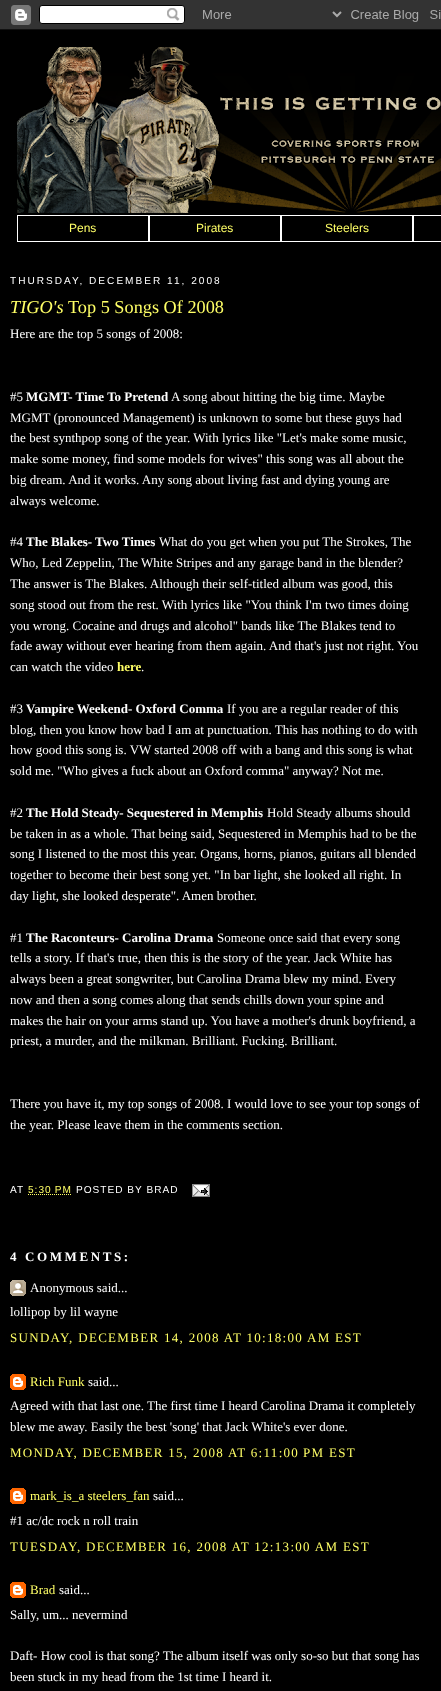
<!DOCTYPE html>
<meta charset="utf-8">
<style>body { margin: 0 } canvas { display: block }</style>
<canvas id="canvas" width="441" height="1691"></canvas>
<script type="module">
  const canvas = document.getElementById("canvas");
  const ctx = canvas.getContext("2d");
  ctx.miterLimit = 4;
  ctx.fontKerning = "normal";
  async function loadImage(src) {
    const img = new Image();
    img.src = src;
    await img.decode();
    return img;
  }

  ctx.fillStyle = "#000000";
  ctx.fillRect(0, 0, 441, 1691);
  ctx.drawImage(await loadImage("img1.png"), 0, 0, 441, 30);
  ctx.drawImage(await loadImage("img2.png"), 17, 47, 424, 166);
  ctx.strokeStyle = "#ffffff";
  ctx.strokeRect(17.5, 215.5, 131, 26);
  ctx.font = "12px Liberation Sans";
  ctx.fillStyle = "#ffff66";
  ctx.fillText("Pens", 69, 232);
  ctx.strokeRect(149.5, 215.5, 131, 26);
  ctx.fillText("Pirates", 196, 232);
  ctx.strokeRect(281.5, 215.5, 131, 26);
  ctx.fillText("Steelers", 325, 232);
  ctx.strokeRect(413.5, 215.5, 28, 26);
  ctx.letterSpacing = "2px";
  ctx.font = "10.1px Liberation Sans";
  ctx.fillStyle = "#ffffff";
  ctx.fillText("THURSDAY, DECEMBER 11, 2008", 10, 284);
  ctx.letterSpacing = "0px";
  ctx.font = "italic 18.25px Liberation Serif";
  ctx.fillStyle = "#ffff66";
  ctx.fillText("TIGO's", 10, 313);
  ctx.font = "18.25px Liberation Serif";
  ctx.fillText("Top 5 Songs Of 2008", 68, 313);
  ctx.font = "13px Liberation Serif";
  ctx.fillStyle = "#ffffff";
  ctx.fillText("Here are the top 5 songs of 2008:", 10, 338);
  ctx.fillText("#5", 10, 401);
  ctx.font = "bold 13px Liberation Serif";
  ctx.fillText("MGMT- Time To Pretend", 26, 401);
  ctx.font = "13px Liberation Serif";
  ctx.fillText("A song about hitting the big time. Maybe", 171, 401);
  ctx.fillText("MGMT (pronounced Management) is unknown to some but these guys had", 10, 422);
  ctx.fillText("the best synthpop song of the year. With lyrics like \"Let's make some music,", 10, 442);
  ctx.fillText("make some money, find some models for wives\" this song was all about the", 10, 463);
  ctx.fillText("big dream. And it works. Any song about living fast and dying young are", 10, 484);
  ctx.fillText("always welcome.", 10, 505);
  ctx.fillText("#4", 10, 546);
  ctx.font = "bold 13px Liberation Serif";
  ctx.fillText("The Blakes- Two Times", 26, 546);
  ctx.font = "13px Liberation Serif";
  ctx.fillText("What do you get when you put The Strokes, The", 159, 546);
  ctx.fillText("Who, Led Zeppelin, The White Stripes and any garage band in the blender?", 10, 567);
  ctx.fillText("The answer is The Blakes. Although their self-titled album was good, this", 10, 588);
  ctx.fillText("song stood out from the rest. With lyrics like \"You think I'm two times doing", 10, 609);
  ctx.fillText("you wrong. Cocaine and drugs and alcohol\" bands like The Blakes tend to", 10, 630);
  ctx.fillText("fade away without ever hearing from them again. And that's just not right. You", 10, 650);
  ctx.fillText("can watch the video", 10, 671);
  ctx.font = "bold 13px Liberation Serif";
  ctx.fillStyle = "#ffff66";
  ctx.fillText("here", 117, 671);
  ctx.font = "13px Liberation Serif";
  ctx.fillStyle = "#ffffff";
  ctx.fillText(".", 141, 671);
  ctx.fillText("#3", 10, 713);
  ctx.font = "bold 13px Liberation Serif";
  ctx.fillText("Vampire Weekend- Oxford Comma", 26, 713);
  ctx.font = "13px Liberation Serif";
  ctx.fillText("If you are a regular reader of this", 227, 713);
  ctx.fillText("blog, then you know how bad I am at punctuation. This has nothing to do with", 10, 734);
  ctx.fillText("how good this song is. VW started 2008 off with a bang and this song is what", 10, 754);
  ctx.fillText("sold me. \"Who gives a fuck about an Oxford comma\" anyway? Not me.", 10, 775);
  ctx.fillText("#2", 10, 817);
  ctx.font = "bold 13px Liberation Serif";
  ctx.fillText("The Hold Steady- Sequestered in Memphis", 26, 817);
  ctx.font = "13px Liberation Serif";
  ctx.fillText("Hold Steady albums should", 267, 817);
  ctx.fillText("be taken in as a whole. That being said, Sequestered in Memphis had to be the", 10, 838);
  ctx.fillText("song I listened to the most this year. Organs, horns, pianos, guitars all blended", 10, 858);
  ctx.fillText("together to become their best song yet. \"In bar light, she looked all right. In", 10, 879);
  ctx.fillText("day light, she looked desperate\". Amen brother.", 10, 900);
  ctx.fillText("#1", 10, 942);
  ctx.font = "bold 13px Liberation Serif";
  ctx.fillText("The Raconteurs- Carolina Drama", 26, 942);
  ctx.font = "13px Liberation Serif";
  ctx.fillText("Someone once said that every song", 217, 942);
  ctx.fillText("tells a story. If that's true, then this is the story of the year. Jack White has", 10, 962);
  ctx.fillText("always been a great songwriter, but Carolina Drama blew my mind. Every", 10, 983);
  ctx.fillText("now and then a song comes along that sends chills down your spine and", 10, 1004);
  ctx.fillText("makes the hair on your arms stand up. You have a mother's drunk boyfriend, a", 10, 1025);
  ctx.fillText("priest, a murder, and the milkman. Brilliant. Fucking. Brilliant.", 10, 1045);
  ctx.fillText("There you have it, my top songs of 2008. I would love to see your top songs of", 10, 1108);
  ctx.fillText("the year. Please leave them in the comments section.", 10, 1129);
  ctx.letterSpacing = "1px";
  ctx.font = "10.1px Liberation Sans";
  ctx.fillText("AT", 10, 1193);
  ctx.fillStyle = "#ffff66";
  ctx.fillText("5:30 PM", 28, 1193);
  ctx.beginPath();
  ctx.moveTo(28, 1194.5);
  ctx.lineTo(72, 1194.5);
  ctx.strokeStyle = "#ffff66";
  ctx.setLineDash([1, 1]);
  ctx.stroke();
  ctx.fillStyle = "#ffffff";
  ctx.fillText("POSTED BY BRAD", 76, 1193);
  ctx.drawImage(await loadImage("img3.png"), 192, 1184, 18, 13);
  ctx.letterSpacing = "2.6px";
  ctx.font = "bold 13px Liberation Serif";
  ctx.fillText("4 COMMENTS:", 10, 1261);
  ctx.drawImage(await loadImage("img4.png"), 10, 1280, 16, 16);
  ctx.letterSpacing = "0px";
  ctx.font = "13px Liberation Serif";
  ctx.fillText("Anonymous said...", 30, 1292);
  ctx.fillText("lollipop by lil wayne", 10, 1316);
  ctx.letterSpacing = "1.3px";
  ctx.fillStyle = "#ffff66";
  ctx.fillText("SUNDAY, DECEMBER 14, 2008 AT 10:18:00 AM EST", 10, 1342);
  ctx.drawImage(await loadImage("img5.png"), 10, 1374, 16, 16);
  ctx.letterSpacing = "0px";
  ctx.fillText("Rich Funk", 30, 1386);
  ctx.fillStyle = "#ffffff";
  ctx.fillText("said...", 88, 1386);
  ctx.fillText("Agreed with that last one. The first time I heard Carolina Drama it completely", 10, 1410);
  ctx.fillText("blew me away. Easily the best 'song' that Jack White's ever done.", 10, 1431);
  ctx.letterSpacing = "1.3px";
  ctx.fillStyle = "#ffff66";
  ctx.fillText("MONDAY, DECEMBER 15, 2008 AT 6:11:00 PM EST", 10, 1457);
  ctx.drawImage(await loadImage("img5.png"), 10, 1488, 16, 16);
  ctx.letterSpacing = "0px";
  ctx.fillText("mark_is_a steelers_fan", 30, 1500);
  ctx.fillStyle = "#ffffff";
  ctx.fillText("said...", 153, 1500);
  ctx.fillText("#1 ac/dc rock n roll train", 10, 1525);
  ctx.letterSpacing = "1.3px";
  ctx.fillStyle = "#ffff66";
  ctx.fillText("TUESDAY, DECEMBER 16, 2008 AT 12:13:00 AM EST", 10, 1551);
  ctx.drawImage(await loadImage("img5.png"), 10, 1582, 16, 16);
  ctx.letterSpacing = "0px";
  ctx.fillText("Brad", 30, 1594);
  ctx.fillStyle = "#ffffff";
  ctx.fillText("said...", 59, 1594);
  ctx.fillText("Sally, um... nevermind", 10, 1619);
  ctx.fillText("Daft- How cool is that song? The album itself was only so-so but that song has", 10, 1660);
  ctx.fillText("been stuck in my head from the 1st time I heard it.", 10, 1681);
</script>
